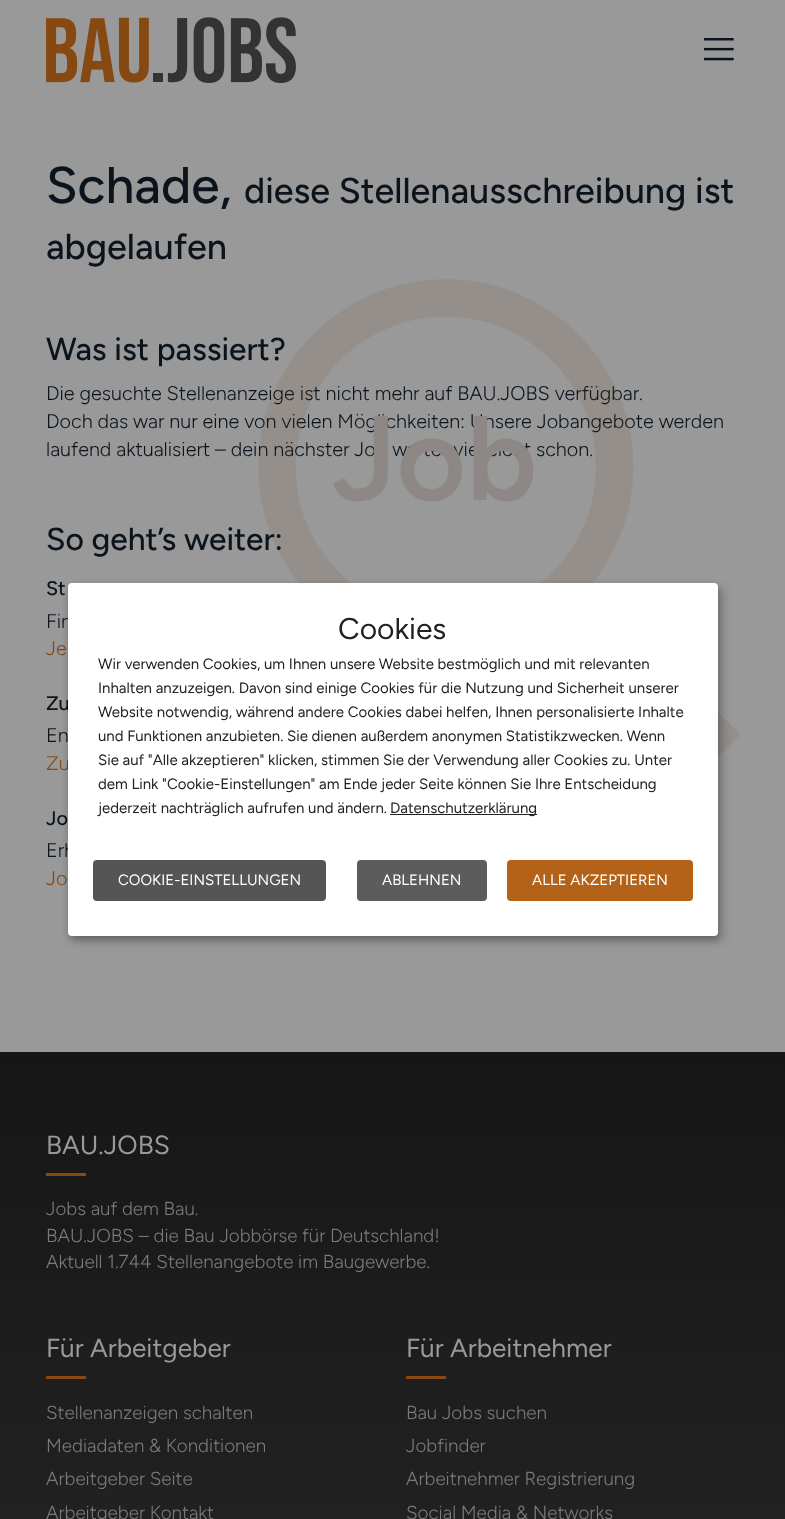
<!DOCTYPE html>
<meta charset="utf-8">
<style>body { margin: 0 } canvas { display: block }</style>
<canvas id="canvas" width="785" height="1519"></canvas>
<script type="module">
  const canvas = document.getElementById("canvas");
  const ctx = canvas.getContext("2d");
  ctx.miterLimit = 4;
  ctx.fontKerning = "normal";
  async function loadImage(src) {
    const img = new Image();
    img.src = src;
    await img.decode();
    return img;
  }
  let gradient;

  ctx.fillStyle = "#999999";
  ctx.fillRect(0, 0, 785, 1519);
  ctx.drawImage(await loadImage("img1.png"), 46, 17, 250, 66);
  ctx.drawImage(await loadImage("img2.png"), 703, 38, 31, 23);
  ctx.font = "500 51.5px Figtree";
  ctx.fillStyle = "#0b141c";
  ctx.fillText("Schade,", 46, 203);
  ctx.font = "500 36px Figtree";
  ctx.fillText("diese Stellenausschreibung ist", 244, 203);
  ctx.fillText("abgelaufen", 46, 259);
  ctx.font = "500 31.75px Figtree";
  ctx.fillText("Was ist passiert?", 46, 360);
  ctx.font = "300 19.8px Figtree";
  ctx.fillText("Die gesuchte Stellenanzeige ist nicht mehr auf BAU.JOBS verfügbar.", 46, 400);
  ctx.fillText("Doch das war nur eine von vielen Möglichkeiten: Unsere Jobangebote werden", 46, 428);
  ctx.fillText("laufend aktualisiert – dein nächster Job wartet vielleicht schon.", 46, 456);
  ctx.font = "500 31.75px Figtree";
  ctx.fillText("So geht’s weiter:", 46, 550);
  ctx.font = "500 19.8px Figtree";
  ctx.fillText("St", 46, 595);
  ctx.font = "300 19.8px Figtree";
  ctx.fillText("Fin", 46, 628);
  ctx.fillStyle = "#874912";
  ctx.fillText("Je", 46, 655);
  ctx.font = "500 19.8px Figtree";
  ctx.fillStyle = "#0b141c";
  ctx.fillText("Zu", 46, 710);
  ctx.font = "300 19.8px Figtree";
  ctx.fillText("En", 46, 742);
  ctx.fillStyle = "#874912";
  ctx.fillText("Zu", 46, 770);
  ctx.font = "500 19.8px Figtree";
  ctx.fillStyle = "#0b141c";
  ctx.fillText("Jo", 46, 825);
  ctx.font = "300 19.8px Figtree";
  ctx.fillText("Erh", 46, 857);
  ctx.fillStyle = "#874912";
  ctx.fillText("Jo", 46, 885);
  ctx.drawImage(await loadImage("img3.png"), 258, 279, 483, 478);
  ctx.font = "600 120px Figtree";
  ctx.fillStyle = "#8d8885";
  ctx.fillText("Job", 332, 500);
  ctx.fillStyle = "rgba(0, 0, 0, 0.19)";
  ctx.filter = "blur(5px)";
  ctx.beginPath();
  ctx.roundRect(73, 588, 650, 353, 4);
  ctx.fill();
  ctx.filter = "none";
  ctx.fillStyle = "rgba(0, 0, 0, 0.2)";
  ctx.filter = "blur(3px)";
  ctx.beginPath();
  ctx.roundRect(68, 587, 650, 353, 4);
  ctx.fill();
  ctx.filter = "none";
  ctx.fillStyle = "#ffffff";
  ctx.beginPath();
  ctx.roundRect(68, 583, 650, 353, 4);
  ctx.fill();
  ctx.font = "30px Figtree";
  ctx.fillStyle = "#222222";
  ctx.fillText("Cookies", 338, 639);
  ctx.font = "15px Figtree";
  ctx.fillText("Wir verwenden Cookies, um Ihnen unsere Website bestmöglich und mit relevanten", 98, 669);
  ctx.fillText("Inhalten anzuzeigen. Davon sind einige Cookies für die Nutzung und Sicherheit unserer", 98, 693);
  ctx.fillText("Website notwendig, während andere Cookies dabei helfen, Ihnen personalisierte Inhalte", 98, 717);
  ctx.fillText("und Funktionen anzubieten. Sie dienen außerdem anonymen Statistikzwecken. Wenn", 98, 741);
  ctx.fillText("Sie auf \"Alle akzeptieren\" klicken, stimmen Sie der Verwendung aller Cookies zu. Unter", 98, 765);
  ctx.fillText("dem Link \"Cookie-Einstellungen\" am Ende jeder Seite können Sie Ihre Entscheidung", 98, 789);
  ctx.fillText("jederzeit nachträglich aufrufen und ändern.", 98, 813);
  ctx.fillRect(390, 814, 147, 1);
  ctx.fillText("Datenschutzerklärung", 390, 813);
  ctx.fillStyle = "#555555";
  ctx.beginPath();
  ctx.roundRect(93, 860, 233, 41, 4);
  ctx.fill();
  ctx.fillStyle = "#ffffff";
  ctx.fillText("COOKIE-EINSTELLUNGEN", 118, 885);
  ctx.fillStyle = "#5c5c5c";
  ctx.beginPath();
  ctx.roundRect(357, 860, 130, 41, 4);
  ctx.fill();
  ctx.fillStyle = "#ffffff";
  ctx.fillText("ABLEHNEN", 382, 885);
  ctx.fillStyle = "#b46218";
  ctx.beginPath();
  ctx.roundRect(507, 860, 186, 41, 4);
  ctx.fill();
  ctx.fillStyle = "#ffffff";
  ctx.fillText("ALLE AKZEPTIEREN", 532, 885);
  gradient = ctx.createLinearGradient(393, 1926, 393, 1052);
  gradient.addColorStop(0, "#2b2b2b");
  gradient.addColorStop(1, "#161616");
  ctx.fillStyle = gradient;
  ctx.fillRect(0, 1052, 785, 467);
  ctx.font = "26.25px Figtree";
  ctx.fillStyle = "#999999";
  ctx.fillText("BAU.JOBS", 46, 1154);
  ctx.fillStyle = "#874912";
  ctx.fillRect(46, 1173, 40, 3);
  ctx.font = "300 18.8px Figtree";
  ctx.fillStyle = "#7a7b7e";
  ctx.fillText("Jobs auf dem Bau.", 46, 1215);
  ctx.fillText("BAU.JOBS – die Bau Jobbörse für Deutschland!", 46, 1242);
  ctx.fillText("Aktuell 1.744 Stellenangebote im Baugewerbe.", 46, 1268);
  ctx.font = "26.25px Figtree";
  ctx.fillStyle = "#999999";
  ctx.fillText("Für Arbeitgeber", 46, 1357);
  ctx.fillStyle = "#874912";
  ctx.fillRect(46, 1376, 40, 3);
  ctx.font = "300 18.8px Figtree";
  ctx.fillStyle = "#7a7b7e";
  ctx.fillText("Stellenanzeigen schalten", 46, 1419);
  ctx.fillText("Mediadaten & Konditionen", 46, 1452);
  ctx.fillText("Arbeitgeber Seite", 46, 1485);
  ctx.fillText("Arbeitgeber Kontakt", 46, 1519);
  ctx.font = "26.25px Figtree";
  ctx.fillStyle = "#999999";
  ctx.fillText("Für Arbeitnehmer", 406, 1357);
  ctx.fillStyle = "#874912";
  ctx.fillRect(406, 1376, 40, 3);
  ctx.font = "300 18.8px Figtree";
  ctx.fillStyle = "#7a7b7e";
  ctx.fillText("Bau Jobs suchen", 406, 1419);
  ctx.fillText("Jobfinder", 406, 1452);
  ctx.fillText("Arbeitnehmer Registrierung", 406, 1485);
  ctx.fillText("Social Media & Networks", 406, 1519);
</script>
